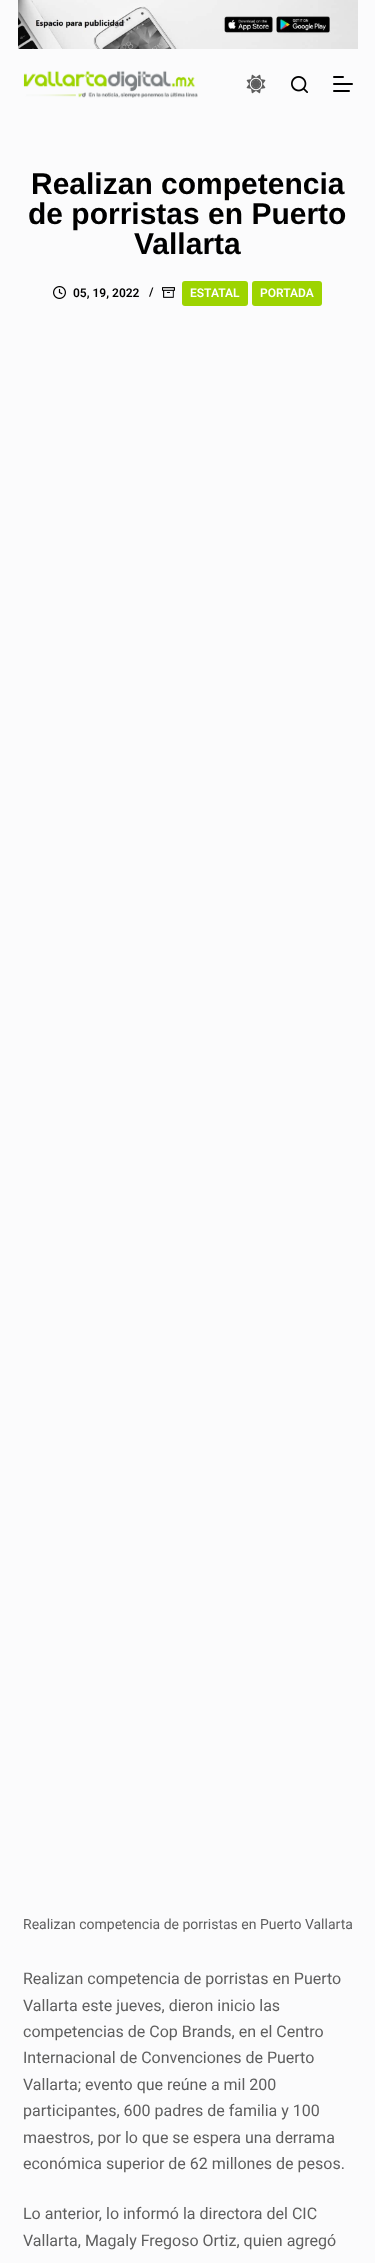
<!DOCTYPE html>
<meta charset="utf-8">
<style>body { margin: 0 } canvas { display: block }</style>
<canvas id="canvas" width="375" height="2263"></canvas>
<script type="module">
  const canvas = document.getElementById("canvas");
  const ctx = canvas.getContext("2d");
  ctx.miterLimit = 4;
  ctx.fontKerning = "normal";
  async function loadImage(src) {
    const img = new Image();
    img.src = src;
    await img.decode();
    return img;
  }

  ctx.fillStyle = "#fbfbfc";
  ctx.fillRect(0, 0, 375, 2263);
  ctx.drawImage(await loadImage("img1.png"), 18, 0, 340, 49);
  ctx.drawImage(await loadImage("img2.png"), 23, 70, 175, 28);
  ctx.drawImage(await loadImage("img3.png"), 246, 74, 20, 20);
  ctx.drawImage(await loadImage("img4.png"), 291, 76, 17, 17);
  ctx.fillStyle = "#000000";
  ctx.beginPath();
  ctx.roundRect(333, 76, 11, 2, 1);
  ctx.fill();
  ctx.beginPath();
  ctx.roundRect(333, 83, 20, 2, 1);
  ctx.fill();
  ctx.beginPath();
  ctx.roundRect(333, 90, 17, 2, 1);
  ctx.fill();
  ctx.font = "bold 30px Liberation Sans";
  ctx.fillText("Realizan competencia", 31, 194);
  ctx.fillText("de porristas en Puerto", 28, 224);
  ctx.fillText("Vallarta", 134, 254);
  ctx.drawImage(await loadImage("img5.png"), 53, 286, 13, 13);
  ctx.font = "600 12px Roboto";
  ctx.fillText("05, 19, 2022", 73, 297);
  ctx.fillText("/", 149, 296);
  ctx.drawImage(await loadImage("img6.png"), 162, 287, 13, 11);
  ctx.fillStyle = "#9dd400";
  ctx.beginPath();
  ctx.roundRect(182, 281, 66, 25, 3);
  ctx.fill();
  ctx.fillStyle = "#ffffff";
  ctx.fillText("ESTATAL", 190, 297);
  ctx.fillStyle = "#9dd400";
  ctx.beginPath();
  ctx.roundRect(252, 281, 70, 25, 3);
  ctx.fill();
  ctx.fillStyle = "#ffffff";
  ctx.fillText("PORTADA", 260, 297);
  ctx.font = "14px Roboto";
  ctx.fillStyle = "#5e5e5e";
  ctx.fillText("Realizan competencia de porristas en Puerto Vallarta", 23, 1929);
  ctx.font = "16px Roboto";
  ctx.fillText("Realizan competencia de porristas en Puerto", 23, 1984);
  ctx.fillText("Vallarta este jueves, dieron inicio las", 23, 2011);
  ctx.fillText("competencias de Cop Brands, en el Centro", 23, 2037);
  ctx.fillText("Internacional de Convenciones de Puerto", 23, 2063);
  ctx.fillText("Vallarta; evento que reúne a mil 200", 23, 2090);
  ctx.fillText("participantes, 600 padres de familia y 100", 23, 2116);
  ctx.fillText("maestros, por lo que se espera una derrama", 23, 2143);
  ctx.fillText("económica superior de 62 millones de pesos.", 23, 2169);
  ctx.fillText("Lo anterior, lo informó la directora del CIC", 23, 2219);
  ctx.fillText("Vallarta, Magaly Fregoso Ortiz, quien agregó", 23, 2246);
</script>
